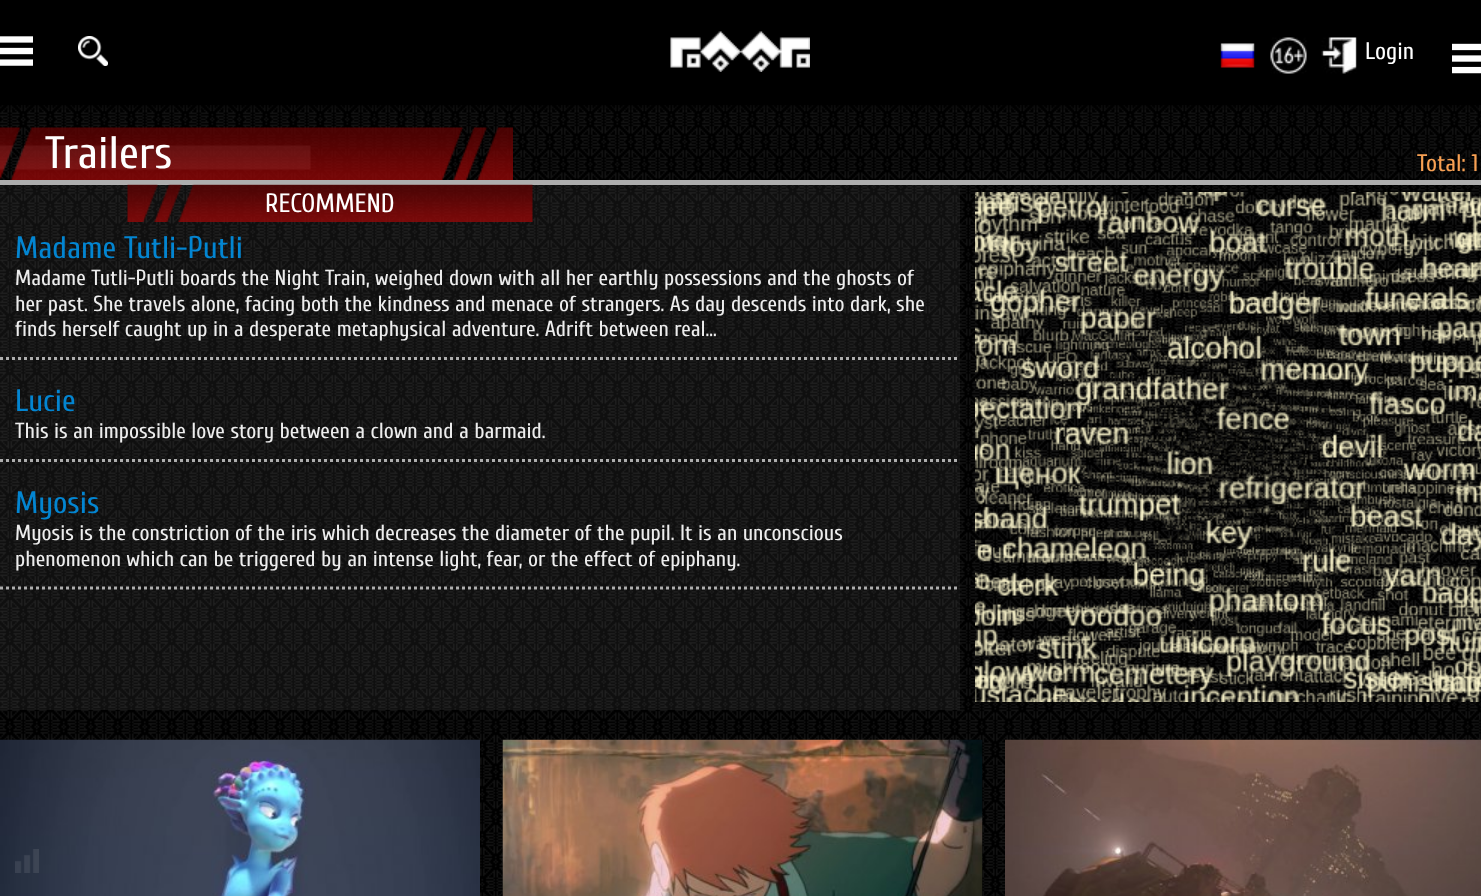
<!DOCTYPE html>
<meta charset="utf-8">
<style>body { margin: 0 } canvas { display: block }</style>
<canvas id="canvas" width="1481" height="896"></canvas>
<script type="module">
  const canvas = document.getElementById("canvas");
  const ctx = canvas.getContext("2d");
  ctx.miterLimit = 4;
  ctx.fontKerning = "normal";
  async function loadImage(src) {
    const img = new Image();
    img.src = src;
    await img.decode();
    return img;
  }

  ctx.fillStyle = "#000000";
  ctx.fillRect(0, 0, 1481, 896);
  ctx.drawImage(await loadImage("img1.png"), 0, 36, 33, 30);
  ctx.drawImage(await loadImage("img2.png"), 78, 36, 30, 30);
  ctx.drawImage(await loadImage("img3.png"), 670, 31, 140, 41);
  ctx.drawImage(await loadImage("img4.png"), 1220, 43, 35, 25);
  ctx.drawImage(await loadImage("img5.png"), 1270, 37, 37, 37);
  ctx.drawImage(await loadImage("img6.png"), 1321, 37, 36, 37);
  ctx.font = "24px Cuprum";
  ctx.fillStyle = "#ffffff";
  ctx.fillText("Login", 1365, 59);
  ctx.drawImage(await loadImage("img7.png"), 1452, 43, 29, 31);
  ctx.drawImage(await loadImage("img9.png"), 0, 105, 1481, 791);
  ctx.drawImage(await loadImage("img8.png"), 0, 105, 1480, 5);
  ctx.fillStyle = "#aeaeae";
  ctx.fillRect(0, 180, 1481, 5);
  ctx.drawImage(await loadImage("img10.png"), 0, 127, 513, 53);
  ctx.font = "45.5px Cuprum";
  ctx.fillStyle = "#ffffff";
  ctx.fillText("Trailers", 45, 168);
  ctx.font = "24px Cuprum";
  ctx.fillStyle = "#f7a053";
  ctx.fillText("Total: 1", 1417, 171);
  ctx.fillStyle = "rgba(147, 147, 147, 0.1)";
  ctx.fillRect(0, 185, 960, 525);
  ctx.drawImage(await loadImage("img11.png"), 127, 184, 406, 38);
  ctx.font = "26.5px Cuprum";
  ctx.fillStyle = "#ffffff";
  ctx.fillText("RECOMMEND", 265, 212);
  ctx.beginPath();
  ctx.moveTo(0, 358.5);
  ctx.lineTo(960, 358.5);
  ctx.strokeStyle = "#aeaeae";
  ctx.lineWidth = 3;
  ctx.setLineDash([3, 3]);
  ctx.stroke();
  ctx.font = "31.25px Cuprum";
  ctx.fillStyle = "#0385d1";
  ctx.fillText("Madame Tutli-Putli", 15, 258);
  ctx.font = "21.85px Cuprum";
  ctx.fillStyle = "#ededed";
  ctx.fillText("Madame Tutli-Putli boards the Night Train, weighed down with all her earthly possessions and the ghosts of", 15, 285);
  ctx.fillText("her past. She travels alone, facing both the kindness and menace of strangers. As day descends into dark, she", 15, 311);
  ctx.fillText("finds herself caught up in a desperate metaphysical adventure. Adrift between real...", 15, 336);
  ctx.beginPath();
  ctx.moveTo(0, 460.5);
  ctx.lineTo(960, 460.5);
  ctx.stroke();
  ctx.font = "31.25px Cuprum";
  ctx.fillStyle = "#0385d1";
  ctx.fillText("Lucie", 15, 411);
  ctx.font = "21.85px Cuprum";
  ctx.fillStyle = "#ededed";
  ctx.fillText("This is an impossible love story between a clown and a barmaid.", 15, 438);
  ctx.beginPath();
  ctx.moveTo(0, 588);
  ctx.lineTo(960, 588);
  ctx.stroke();
  ctx.font = "31.25px Cuprum";
  ctx.fillStyle = "#0385d1";
  ctx.fillText("Myosis", 15, 513);
  ctx.font = "21.85px Cuprum";
  ctx.fillStyle = "#ededed";
  ctx.fillText("Myosis is the constriction of the iris which decreases the diameter of the pupil. It is an unconscious", 15, 540);
  ctx.fillText("phenomenon which can be triggered by an intense light, fear, or the effect of epiphany.", 15, 566);
  ctx.drawImage(await loadImage("img12.png"), 975, 192, 506, 510);
  ctx.drawImage(await loadImage("img13.png"), 0, 739, 480, 157);
  ctx.drawImage(await loadImage("img14.png"), 502, 739, 481, 157);
  ctx.drawImage(await loadImage("img15.png"), 1005, 739, 476, 157);
  ctx.drawImage(await loadImage("img16.png"), 15, 849, 24, 24);
</script>
